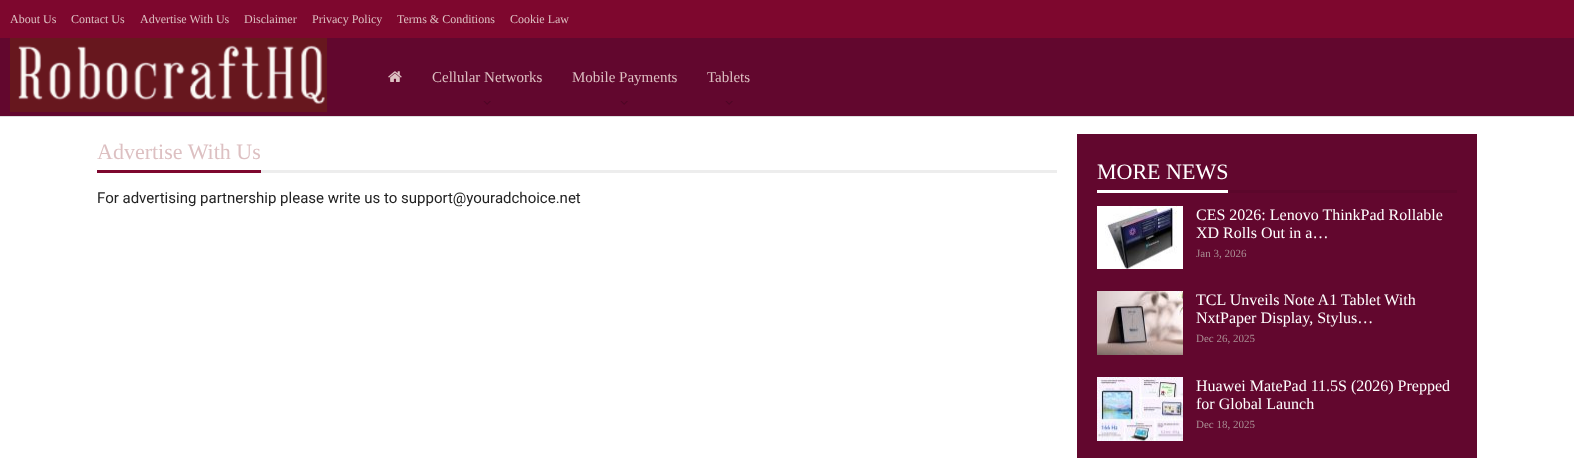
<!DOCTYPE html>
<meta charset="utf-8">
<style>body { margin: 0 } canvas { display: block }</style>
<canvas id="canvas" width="1574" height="458"></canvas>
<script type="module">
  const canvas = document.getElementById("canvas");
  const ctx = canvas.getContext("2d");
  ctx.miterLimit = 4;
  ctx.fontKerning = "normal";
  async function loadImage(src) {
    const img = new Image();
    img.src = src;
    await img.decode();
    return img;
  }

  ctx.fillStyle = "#ffffff";
  ctx.fillRect(0, 0, 1574, 458);
  ctx.fillStyle = "#7e072e";
  ctx.fillRect(0, 0, 1574, 38);
  ctx.fillStyle = "#62072e";
  ctx.fillRect(0, 38, 1574, 78);
  ctx.fillStyle = "#dedede";
  ctx.fillRect(0, 116, 1574, 1);
  ctx.font = "12px Liberation Serif";
  ctx.fillStyle = "#ddc0c2";
  ctx.fillText("About Us", 10, 23);
  ctx.fillText("Contact Us", 71, 23);
  ctx.fillText("Advertise With Us", 140, 23);
  ctx.fillText("Disclaimer", 244, 23);
  ctx.fillText("Privacy Policy", 312, 23);
  ctx.fillText("Terms & Conditions", 397, 23);
  ctx.fillText("Cookie Law", 510, 23);
  ctx.drawImage(await loadImage("img1.png"), 10, 38, 317, 74);
  ctx.drawImage(await loadImage("img2.png"), 388, 71, 14, 11);
  ctx.font = "15px Liberation Serif";
  ctx.fillText("Cellular Networks", 432, 82);
  ctx.drawImage(await loadImage("img3.png"), 483, 101, 8, 4);
  ctx.fillText("Mobile Payments", 572, 82);
  ctx.drawImage(await loadImage("img3.png"), 620, 101, 8, 4);
  ctx.fillText("Tablets", 707, 82);
  ctx.drawImage(await loadImage("img3.png"), 725, 101, 8, 4);
  ctx.font = "22px Liberation Serif";
  ctx.fillText("Advertise With Us", 97, 159);
  ctx.fillStyle = "#7e072e";
  ctx.fillRect(97, 170, 164, 3);
  ctx.fillStyle = "#ededed";
  ctx.fillRect(261, 170, 796, 3);
  ctx.font = "15px Roboto";
  ctx.fillStyle = "#222222";
  ctx.fillText("For advertising partnership please write us to support@youradchoice.net", 97, 203);
  ctx.fillStyle = "#62072e";
  ctx.fillRect(1077, 134, 400, 324);
  ctx.font = "22px Liberation Serif";
  ctx.fillStyle = "#ffffff";
  ctx.fillText("MORE NEWS", 1097, 179);
  ctx.fillRect(1097, 190, 131, 3);
  ctx.fillStyle = "#5b072b";
  ctx.fillRect(1228, 190, 229, 3);
  ctx.drawImage(await loadImage("img4.png"), 1097, 206, 86, 63);
  ctx.font = "16px Liberation Serif";
  ctx.fillStyle = "#ffffff";
  ctx.fillText("CES 2026: Lenovo ThinkPad Rollable", 1196, 220);
  ctx.fillText("XD Rolls Out in a…", 1196, 238);
  ctx.font = "11px Liberation Serif";
  ctx.fillStyle = "#aa8f94";
  ctx.fillText("Jan 3, 2026", 1196, 257);
  ctx.drawImage(await loadImage("img5.png"), 1097, 291, 86, 64);
  ctx.font = "16px Liberation Serif";
  ctx.fillStyle = "#ffffff";
  ctx.fillText("TCL Unveils Note A1 Tablet With", 1196, 305);
  ctx.fillText("NxtPaper Display, Stylus…", 1196, 323);
  ctx.font = "11px Liberation Serif";
  ctx.fillStyle = "#aa8f94";
  ctx.fillText("Dec 26, 2025", 1196, 342);
  ctx.drawImage(await loadImage("img6.png"), 1097, 377, 86, 64);
  ctx.font = "16px Liberation Serif";
  ctx.fillStyle = "#ffffff";
  ctx.fillText("Huawei MatePad 11.5S (2026) Prepped", 1196, 391);
  ctx.fillText("for Global Launch", 1196, 409);
  ctx.font = "11px Liberation Serif";
  ctx.fillStyle = "#aa8f94";
  ctx.fillText("Dec 18, 2025", 1196, 428);
</script>
